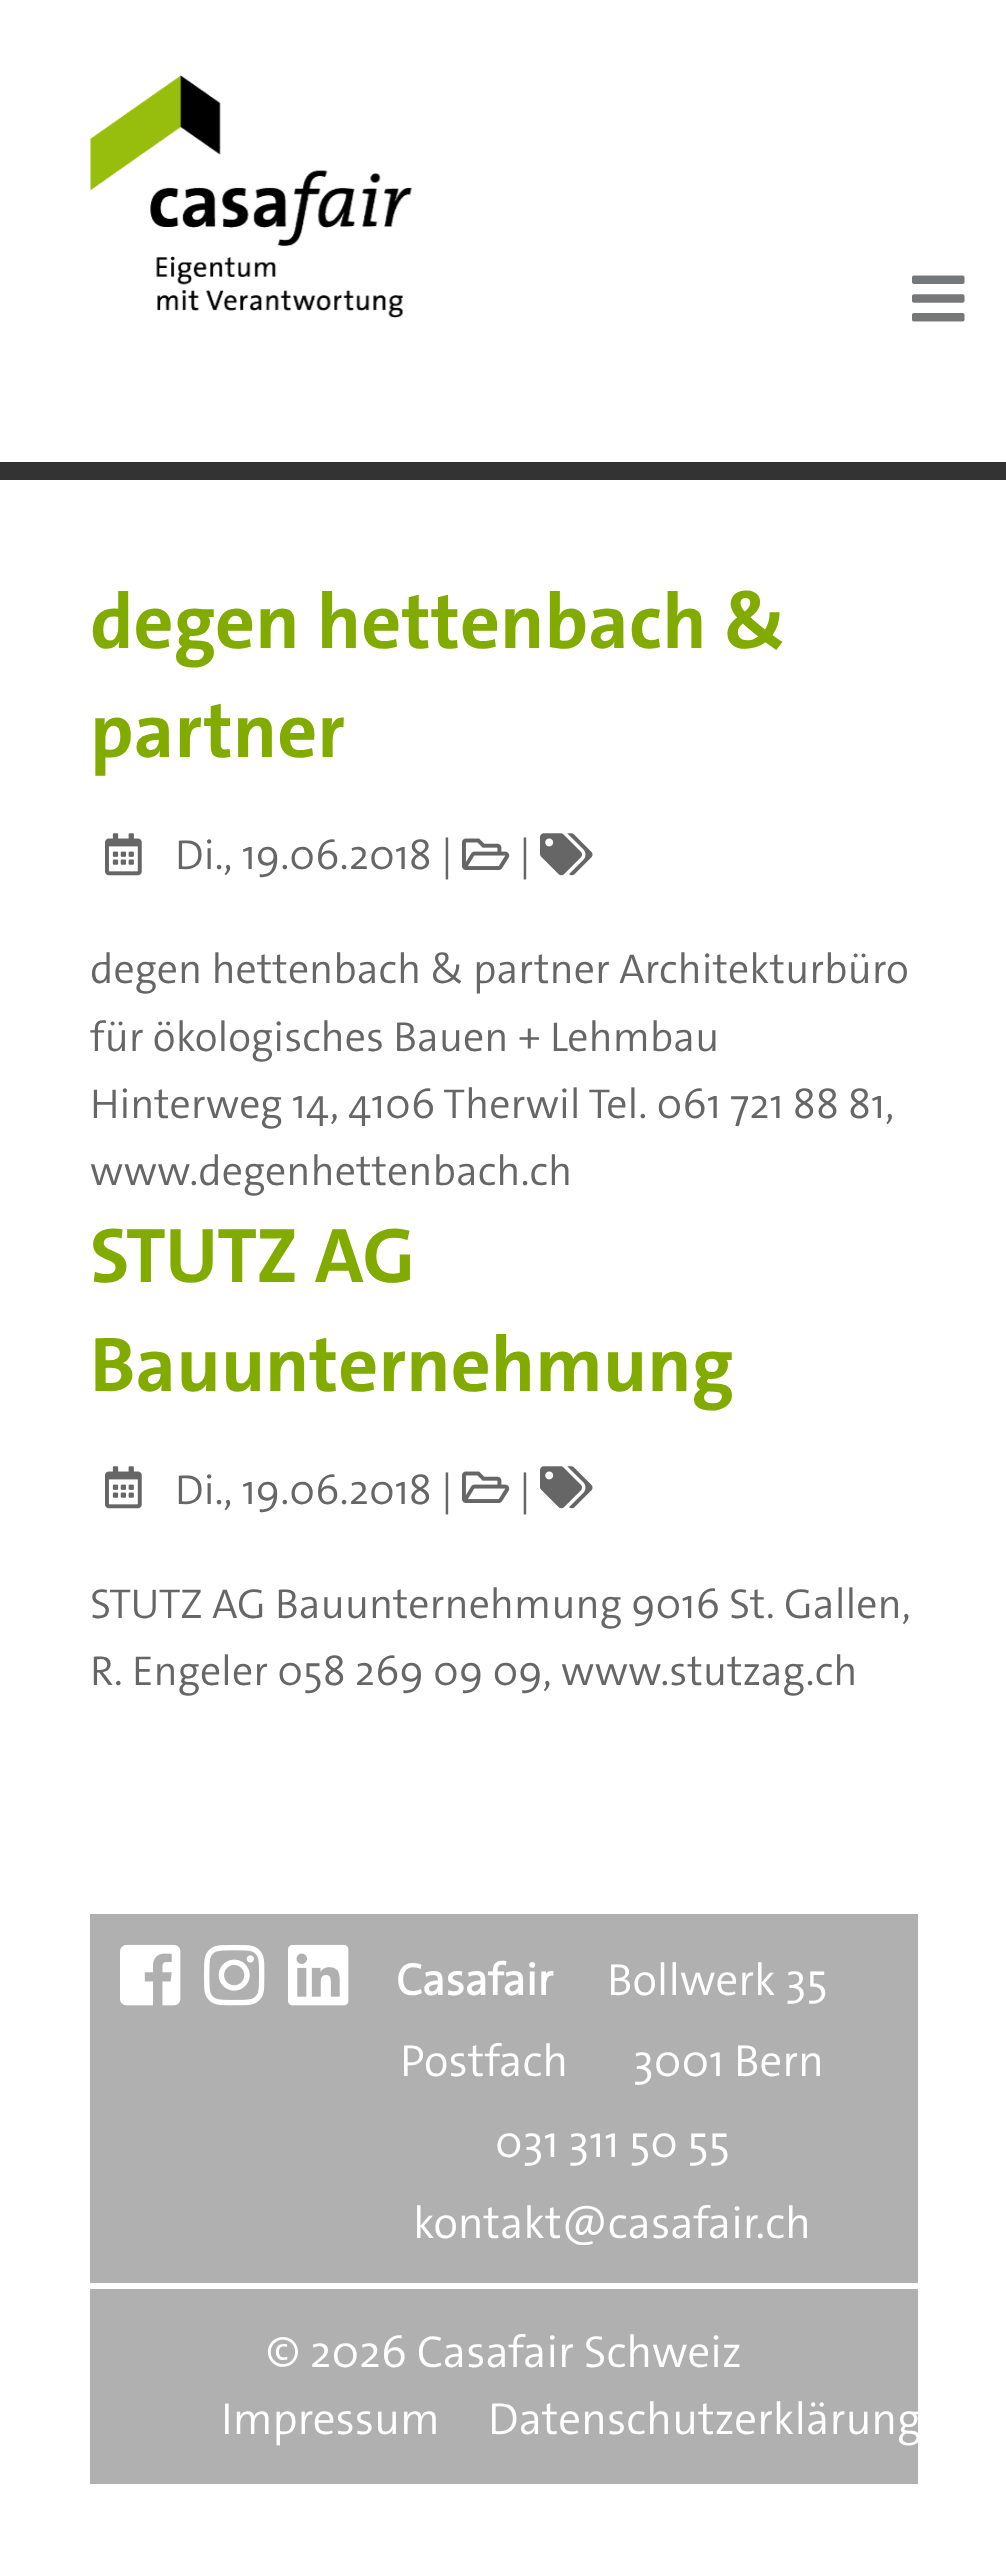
<!DOCTYPE html>
<meta charset="utf-8">
<style>body { margin: 0 } canvas { display: block }</style>
<canvas id="canvas" width="1006" height="2575"></canvas>
<script type="module">
  const canvas = document.getElementById("canvas");
  const ctx = canvas.getContext("2d");
  ctx.miterLimit = 4;
  ctx.fontKerning = "normal";
  async function loadImage(src) {
    const img = new Image();
    img.src = src;
    await img.decode();
    return img;
  }

  ctx.fillStyle = "#ffffff";
  ctx.fillRect(0, 0, 1006, 2575);
  ctx.fillStyle = "#333333";
  ctx.fillRect(0, 462, 1006, 18);
  ctx.drawImage(await loadImage("img1.png"), 90, 75, 323, 243);
  ctx.drawImage(await loadImage("img2.png"), 912, 275, 53, 47);
  ctx.font = "bold 78px 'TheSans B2'";
  ctx.fillStyle = "#82ab00";
  ctx.fillText("degen hettenbach &", 90, 648);
  ctx.fillText("partner", 90, 757);
  ctx.drawImage(await loadImage("img3.png"), 105, 833, 37, 43);
  ctx.font = "300 42px 'TheSans B2'";
  ctx.fillStyle = "#666666";
  ctx.fillText("Di., 19.06.2018 |", 175, 869);
  ctx.drawImage(await loadImage("img4.png"), 462, 838, 48, 32);
  ctx.fillText("|", 519, 869);
  ctx.drawImage(await loadImage("img5.png"), 540, 833, 53, 43);
  ctx.fillText("degen hettenbach & partner Architekturbüro", 90, 983);
  ctx.fillText("für ökologisches Bauen + Lehmbau", 90, 1051);
  ctx.fillText("Hinterweg 14, 4106 Therwil Tel. 061 721 88 81,", 90, 1118);
  ctx.fillText("www.degenhettenbach.ch", 90, 1185);
  ctx.font = "bold 78px 'TheSans B2'";
  ctx.fillStyle = "#82ab00";
  ctx.fillText("STUTZ AG", 90, 1282);
  ctx.fillText("Bauunternehmung", 90, 1391);
  ctx.drawImage(await loadImage("img3.png"), 105, 1466, 37, 43);
  ctx.font = "300 42px 'TheSans B2'";
  ctx.fillStyle = "#666666";
  ctx.fillText("Di., 19.06.2018 |", 175, 1504);
  ctx.drawImage(await loadImage("img4.png"), 462, 1471, 48, 32);
  ctx.fillText("|", 519, 1504);
  ctx.drawImage(await loadImage("img5.png"), 540, 1466, 53, 43);
  ctx.fillText("STUTZ AG Bauunternehmung 9016 St. Gallen,", 90, 1618);
  ctx.fillText("R. Engeler 058 269 09 09, www.stutzag.ch", 90, 1685);
  ctx.fillStyle = "#b0b0b0";
  ctx.fillRect(90, 1914, 828, 570);
  ctx.drawImage(await loadImage("img6.png"), 120, 1944, 61, 62);
  ctx.drawImage(await loadImage("img7.png"), 204, 1944, 61, 62);
  ctx.drawImage(await loadImage("img8.png"), 288, 1944, 61, 62);
  ctx.font = "bold 45px 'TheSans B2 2'";
  ctx.fillStyle = "#ffffff";
  ctx.fillText("Casafair", 396, 1995);
  ctx.font = "300 45px 'TheSans B2'";
  ctx.fillText("Bollwerk 35", 607, 1995);
  ctx.fillText("Postfach", 400, 2076);
  ctx.fillText("3001 Bern", 633, 2076);
  ctx.fillText("031 311 50 55", 495, 2157);
  ctx.fillText("kontakt@casafair.ch", 413, 2238);
  ctx.fillRect(90, 2283, 828, 6);
  ctx.fillText("© 2026 Casafair Schweiz", 266, 2367);
  ctx.fillText("Impressum", 221, 2434);
  ctx.fillText("Datenschutzerklärung", 488, 2434);
</script>
